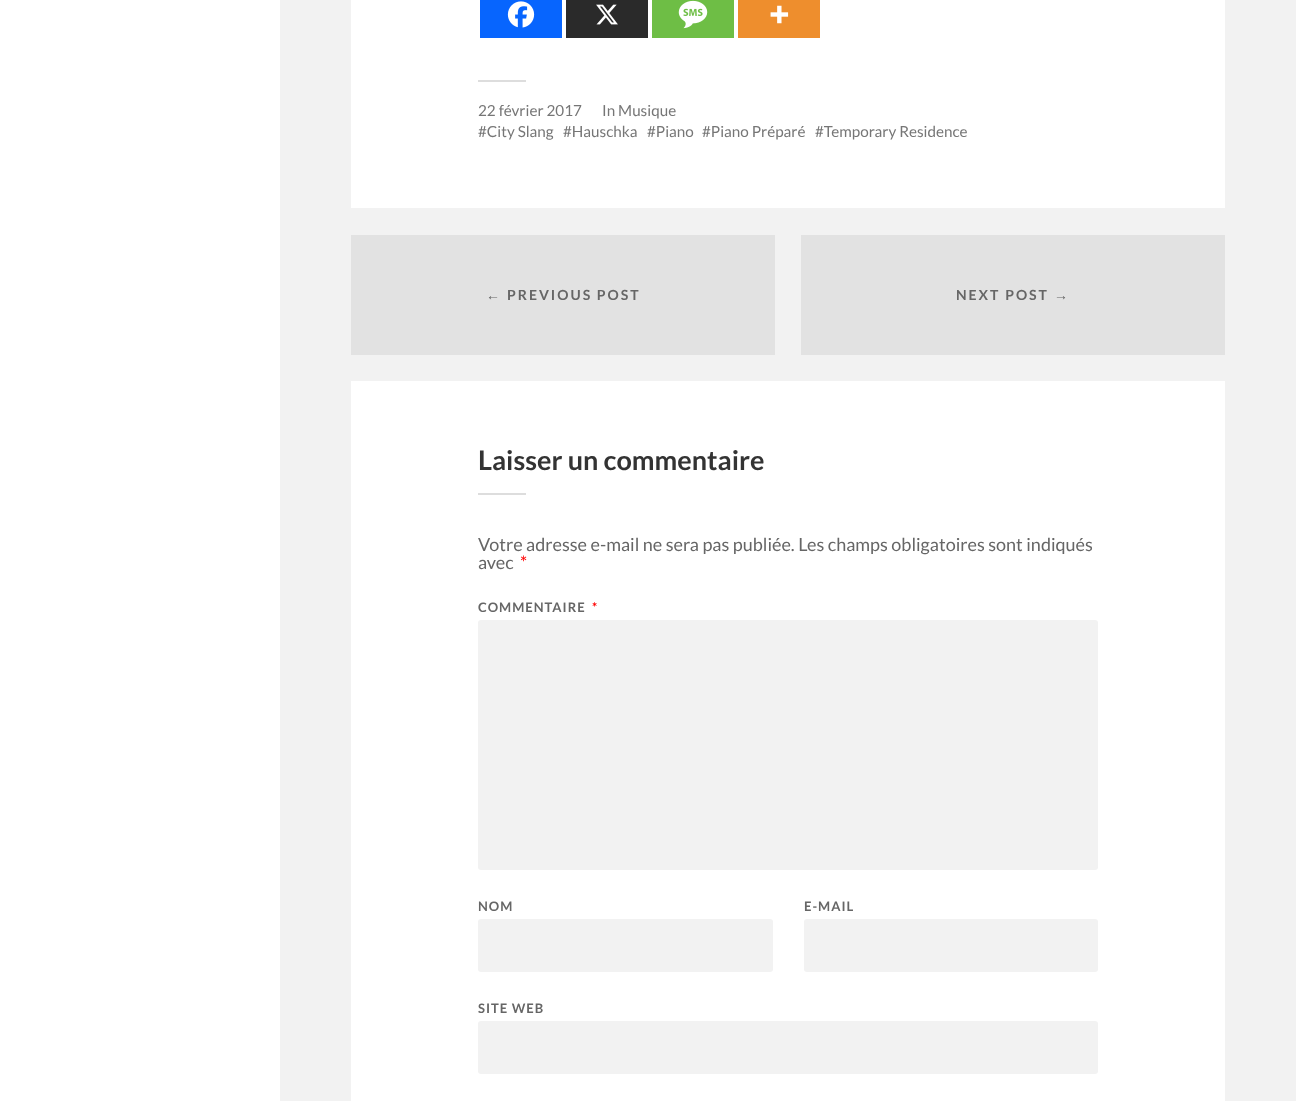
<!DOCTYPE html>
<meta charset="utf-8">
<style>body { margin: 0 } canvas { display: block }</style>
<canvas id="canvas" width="1296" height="1101"></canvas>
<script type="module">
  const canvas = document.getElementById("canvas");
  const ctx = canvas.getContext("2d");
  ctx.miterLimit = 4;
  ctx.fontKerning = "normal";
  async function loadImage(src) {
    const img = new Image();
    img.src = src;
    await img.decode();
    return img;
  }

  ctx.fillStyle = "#f2f2f2";
  ctx.fillRect(0, 0, 1296, 1101);
  ctx.fillStyle = "#ffffff";
  ctx.fillRect(0, 0, 280, 1101);
  ctx.fillRect(351, 0, 874, 1101);
  ctx.fillStyle = "#0765fe";
  ctx.fillRect(480, 0, 82, 38);
  ctx.drawImage(await loadImage("img1.png"), 507, 1, 28, 27);
  ctx.fillStyle = "#2a2a2a";
  ctx.fillRect(566, 0, 82, 38);
  ctx.drawImage(await loadImage("img2.png"), 596, 4, 22, 21);
  ctx.fillStyle = "#6ebe45";
  ctx.fillRect(652, 0, 82, 38);
  ctx.drawImage(await loadImage("img3.png"), 678, 0, 30, 29);
  ctx.fillStyle = "#ee8e2d";
  ctx.fillRect(738, 0, 82, 38);
  ctx.drawImage(await loadImage("img4.png"), 770, 5, 19, 19);
  ctx.fillStyle = "#dddddd";
  ctx.fillRect(478, 80, 48, 2);
  ctx.font = "15.25px Lato";
  ctx.fillStyle = "#767676";
  ctx.fillText("22 février 2017", 478, 116);
  ctx.fillText("In Musique", 602, 116);
  ctx.fillText("#City Slang", 478, 137);
  ctx.fillText("#Hauschka", 563, 137);
  ctx.fillText("#Piano", 647, 137);
  ctx.fillText("#Piano Préparé", 702, 137);
  ctx.fillText("#Temporary Residence", 815, 137);
  ctx.fillStyle = "#f2f2f2";
  ctx.fillRect(351, 208, 874, 173);
  ctx.fillStyle = "#e2e2e2";
  ctx.fillRect(351, 235, 424, 120);
  ctx.letterSpacing = "2px";
  ctx.font = "bold 14px Liberation Sans";
  ctx.fillStyle = "#666666";
  ctx.fillText("←", 486, 300);
  ctx.font = "bold 14px Lato";
  ctx.fillText("PREVIOUS POST", 507, 300);
  ctx.fillStyle = "#e2e2e2";
  ctx.fillRect(801, 235, 424, 120);
  ctx.fillStyle = "#666666";
  ctx.fillText("NEXT POST", 956, 300);
  ctx.font = "bold 14px Liberation Sans";
  ctx.fillText("→", 1054, 300);
  ctx.letterSpacing = "0px";
  ctx.font = "bold 27px Lato";
  ctx.fillStyle = "#333333";
  ctx.fillText("Laisser un commentaire", 478, 470);
  ctx.fillStyle = "#dddddd";
  ctx.fillRect(478, 493, 48, 2);
  ctx.font = "18px Lato";
  ctx.fillStyle = "#666666";
  ctx.fillText("Votre adresse e-mail ne sera pas publiée. Les champs obligatoires sont indiqués", 478, 551);
  ctx.fillText("avec", 478, 569);
  ctx.fillStyle = "#ff0000";
  ctx.fillText("*", 520, 569);
  ctx.letterSpacing = "1px";
  ctx.font = "bold 13px Lato";
  ctx.fillStyle = "#666666";
  ctx.fillText("COMMENTAIRE", 478, 612);
  ctx.fillStyle = "#ff0000";
  ctx.fillText("*", 592, 612);
  ctx.fillStyle = "#f2f2f2";
  ctx.beginPath();
  ctx.roundRect(478, 620, 620, 250, 3);
  ctx.fill();
  ctx.fillStyle = "#666666";
  ctx.fillText("NOM", 478, 911);
  ctx.fillStyle = "#f2f2f2";
  ctx.beginPath();
  ctx.roundRect(478, 919, 295, 53, 3);
  ctx.fill();
  ctx.fillStyle = "#666666";
  ctx.fillText("E-MAIL", 804, 911);
  ctx.fillStyle = "#f2f2f2";
  ctx.beginPath();
  ctx.roundRect(804, 919, 294, 53, 3);
  ctx.fill();
  ctx.fillStyle = "#666666";
  ctx.fillText("SITE WEB", 478, 1013);
  ctx.fillStyle = "#f2f2f2";
  ctx.beginPath();
  ctx.roundRect(478, 1021, 620, 53, 3);
  ctx.fill();
</script>
